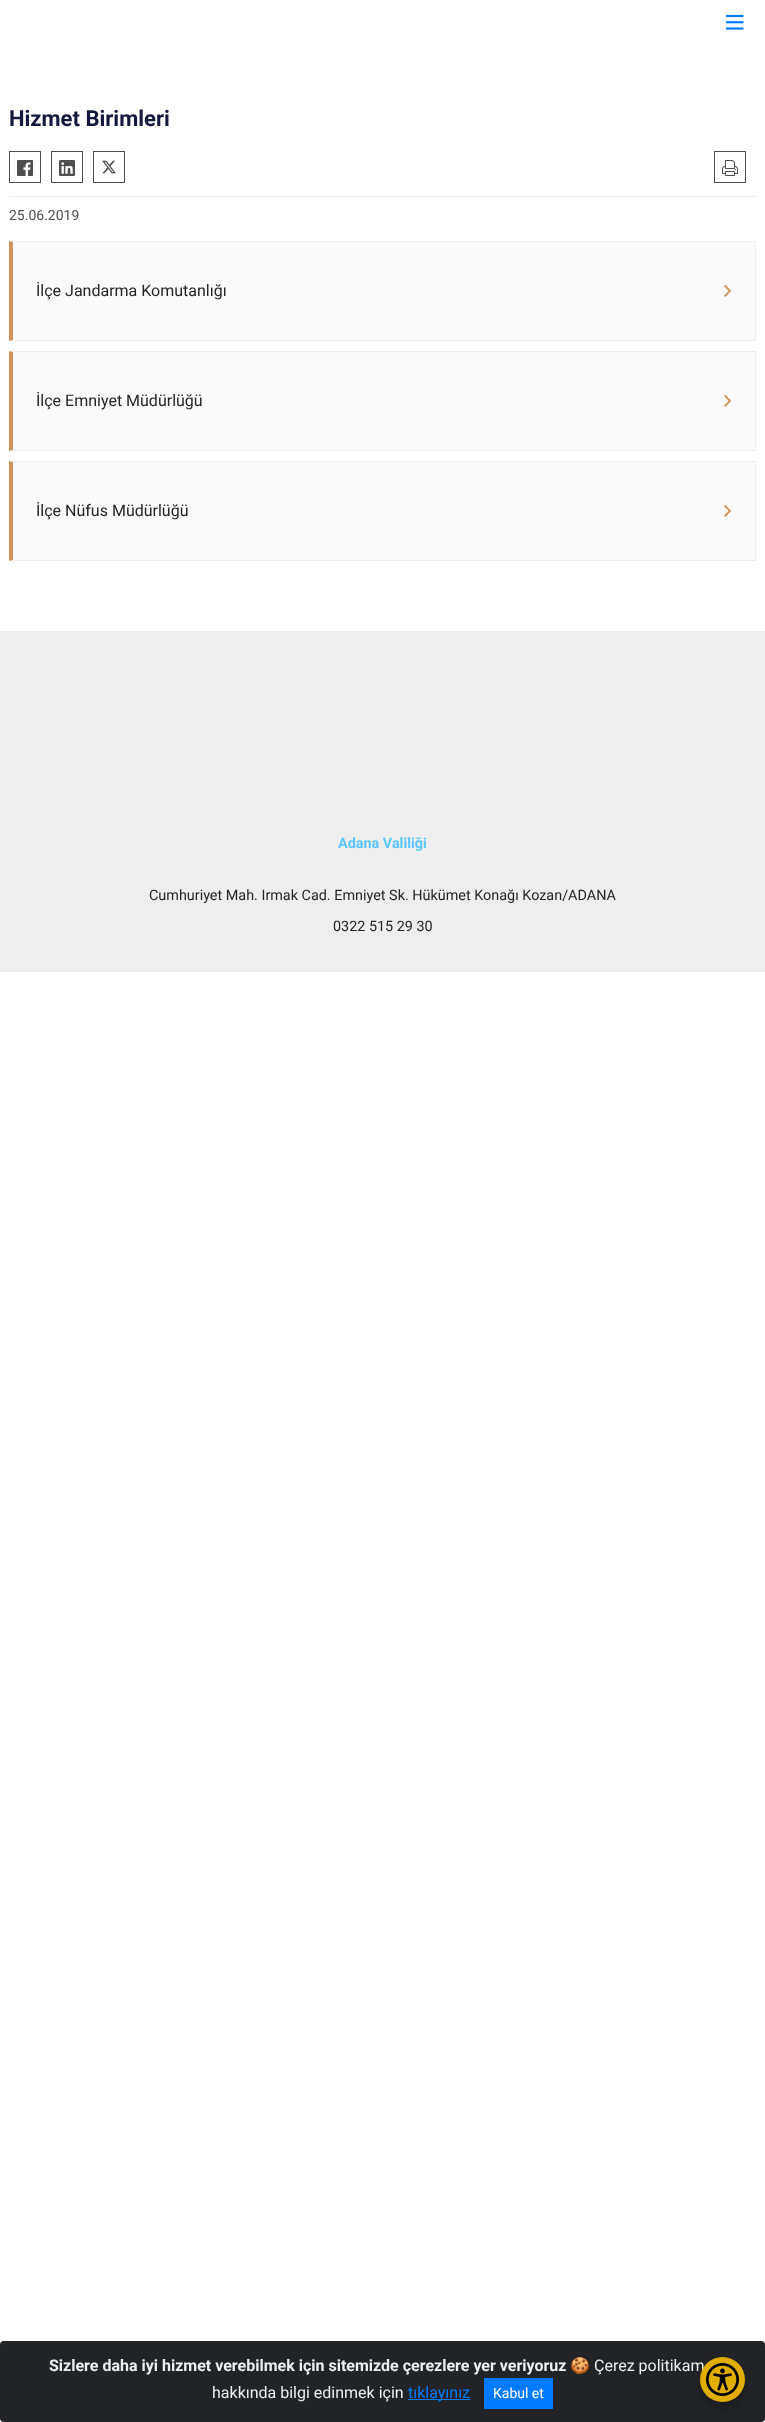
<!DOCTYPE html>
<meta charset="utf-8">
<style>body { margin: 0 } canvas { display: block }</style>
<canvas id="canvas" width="765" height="2422"></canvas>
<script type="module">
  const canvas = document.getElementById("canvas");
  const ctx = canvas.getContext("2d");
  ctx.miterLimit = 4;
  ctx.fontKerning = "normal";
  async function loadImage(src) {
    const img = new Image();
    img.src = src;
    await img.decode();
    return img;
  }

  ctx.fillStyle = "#ffffff";
  ctx.fillRect(0, 0, 765, 2422);
  ctx.drawImage(await loadImage("img1.png"), 726, 14, 18, 16);
  ctx.fillStyle = "#eeeeee";
  ctx.fillRect(9, 196, 747, 1);
  ctx.font = "bold 22px Roboto";
  ctx.fillStyle = "#13183e";
  ctx.fillText("Hizmet Birimleri", 9, 126);
  ctx.strokeStyle = "#4f4f4f";
  ctx.strokeRect(9.5, 151.5, 31, 31);
  ctx.drawImage(await loadImage("img2.png"), 17, 160, 16, 16);
  ctx.strokeRect(51.5, 151.5, 31, 31);
  ctx.drawImage(await loadImage("img3.png"), 59, 160, 16, 16);
  ctx.strokeRect(93.5, 151.5, 31, 31);
  ctx.drawImage(await loadImage("img4.png"), 102, 160, 14, 14);
  ctx.strokeRect(714.5, 151.5, 31, 31);
  ctx.drawImage(await loadImage("img5.png"), 722, 160, 16, 16);
  ctx.font = "14px Roboto";
  ctx.fillStyle = "#4f4f4f";
  ctx.fillText("25.06.2019", 9, 220);
  ctx.fillStyle = "#fafafa";
  ctx.fillRect(13, 242, 742, 98);
  ctx.fillStyle = "#eeeeee";
  ctx.beginPath();
  ctx.moveTo(9, 241);
  ctx.lineTo(756, 241);
  ctx.lineTo(755, 242);
  ctx.lineTo(13, 242);
  ctx.closePath();
  ctx.fill();
  ctx.fillRect(755, 241, 1, 100);
  ctx.beginPath();
  ctx.moveTo(756, 341);
  ctx.lineTo(9, 341);
  ctx.lineTo(13, 340);
  ctx.lineTo(755, 340);
  ctx.closePath();
  ctx.fill();
  ctx.fillStyle = "#d2935b";
  ctx.beginPath();
  ctx.moveTo(9, 341);
  ctx.lineTo(9, 241);
  ctx.lineTo(13, 242);
  ctx.lineTo(13, 340);
  ctx.closePath();
  ctx.fill();
  ctx.font = "16px Roboto";
  ctx.fillStyle = "#252525";
  ctx.fillText("İlçe Jandarma Komutanlığı", 36, 296);
  ctx.drawImage(await loadImage("img6.png"), 724, 284, 8, 13);
  ctx.fillStyle = "#fafafa";
  ctx.fillRect(13, 352, 742, 98);
  ctx.fillStyle = "#eeeeee";
  ctx.beginPath();
  ctx.moveTo(9, 351);
  ctx.lineTo(756, 351);
  ctx.lineTo(755, 352);
  ctx.lineTo(13, 352);
  ctx.closePath();
  ctx.fill();
  ctx.fillRect(755, 351, 1, 100);
  ctx.beginPath();
  ctx.moveTo(756, 451);
  ctx.lineTo(9, 451);
  ctx.lineTo(13, 450);
  ctx.lineTo(755, 450);
  ctx.closePath();
  ctx.fill();
  ctx.fillStyle = "#d2935b";
  ctx.beginPath();
  ctx.moveTo(9, 451);
  ctx.lineTo(9, 351);
  ctx.lineTo(13, 352);
  ctx.lineTo(13, 450);
  ctx.closePath();
  ctx.fill();
  ctx.fillStyle = "#252525";
  ctx.fillText("İlçe Emniyet Müdürlüğü", 36, 406);
  ctx.drawImage(await loadImage("img6.png"), 724, 394, 8, 13);
  ctx.fillStyle = "#fafafa";
  ctx.fillRect(13, 462, 742, 98);
  ctx.fillStyle = "#eeeeee";
  ctx.beginPath();
  ctx.moveTo(9, 461);
  ctx.lineTo(756, 461);
  ctx.lineTo(755, 462);
  ctx.lineTo(13, 462);
  ctx.closePath();
  ctx.fill();
  ctx.fillRect(755, 461, 1, 100);
  ctx.beginPath();
  ctx.moveTo(756, 561);
  ctx.lineTo(9, 561);
  ctx.lineTo(13, 560);
  ctx.lineTo(755, 560);
  ctx.closePath();
  ctx.fill();
  ctx.fillStyle = "#d2935b";
  ctx.beginPath();
  ctx.moveTo(9, 561);
  ctx.lineTo(9, 461);
  ctx.lineTo(13, 462);
  ctx.lineTo(13, 560);
  ctx.closePath();
  ctx.fill();
  ctx.fillStyle = "#252525";
  ctx.fillText("İlçe Nüfus Müdürlüğü", 36, 516);
  ctx.drawImage(await loadImage("img6.png"), 724, 504, 8, 13);
  ctx.fillStyle = "#eeeeee";
  ctx.fillRect(0, 631, 765, 341);
  ctx.font = "bold 14.4px Roboto";
  ctx.fillStyle = "#59c6ff";
  ctx.fillText("Adana Valiliği", 338, 848);
  ctx.font = "14.4px Roboto";
  ctx.fillStyle = "#252525";
  ctx.fillText("Cumhuriyet Mah. Irmak Cad. Emniyet Sk. Hükümet Konağı Kozan/ADANA", 149, 900);
  ctx.fillText("0322 515 29 30", 333, 931);
  ctx.fillStyle = "#212327";
  ctx.beginPath();
  ctx.roundRect(0, 2341, 765, 81, 4);
  ctx.fill();
  ctx.font = "bold 16px Roboto";
  ctx.fillStyle = "#ecf0f1";
  ctx.fillText("Sizlere daha iyi hizmet verebilmek için sitemizde çerezlere yer veriyoruz", 49, 2371);
  ctx.font = "16px Noto Color Emoji";
  ctx.fillText("🍪", 570, 2371);
  ctx.font = "16px Roboto";
  ctx.fillText("Çerez politikam", 594, 2371);
  ctx.fillText("hakkında bilgi edinmek için", 212, 2398);
  ctx.fillStyle = "#007bff";
  ctx.fillRect(408, 2399, 62, 1);
  ctx.fillText("tıklayınız", 408, 2398);
  ctx.fillRect(484, 2378, 69, 31);
  ctx.font = "14px Roboto";
  ctx.fillStyle = "#ffffff";
  ctx.fillText("Kabul et", 493, 2398);
  ctx.fillStyle = "rgba(0, 0, 0, 0.2)";
  ctx.filter = "blur(4px)";
  ctx.beginPath();
  ctx.roundRect(700, 2363, 45, 45, 22.5);
  ctx.fill();
  ctx.filter = "none";
  ctx.fillStyle = "#e1ad01";
  ctx.beginPath();
  ctx.arc(722.5, 2379.5, 22.5, 0, Math.PI * 2);
  ctx.fill();
  ctx.drawImage(await loadImage("img7.png"), 706, 2363, 33, 33);
</script>
